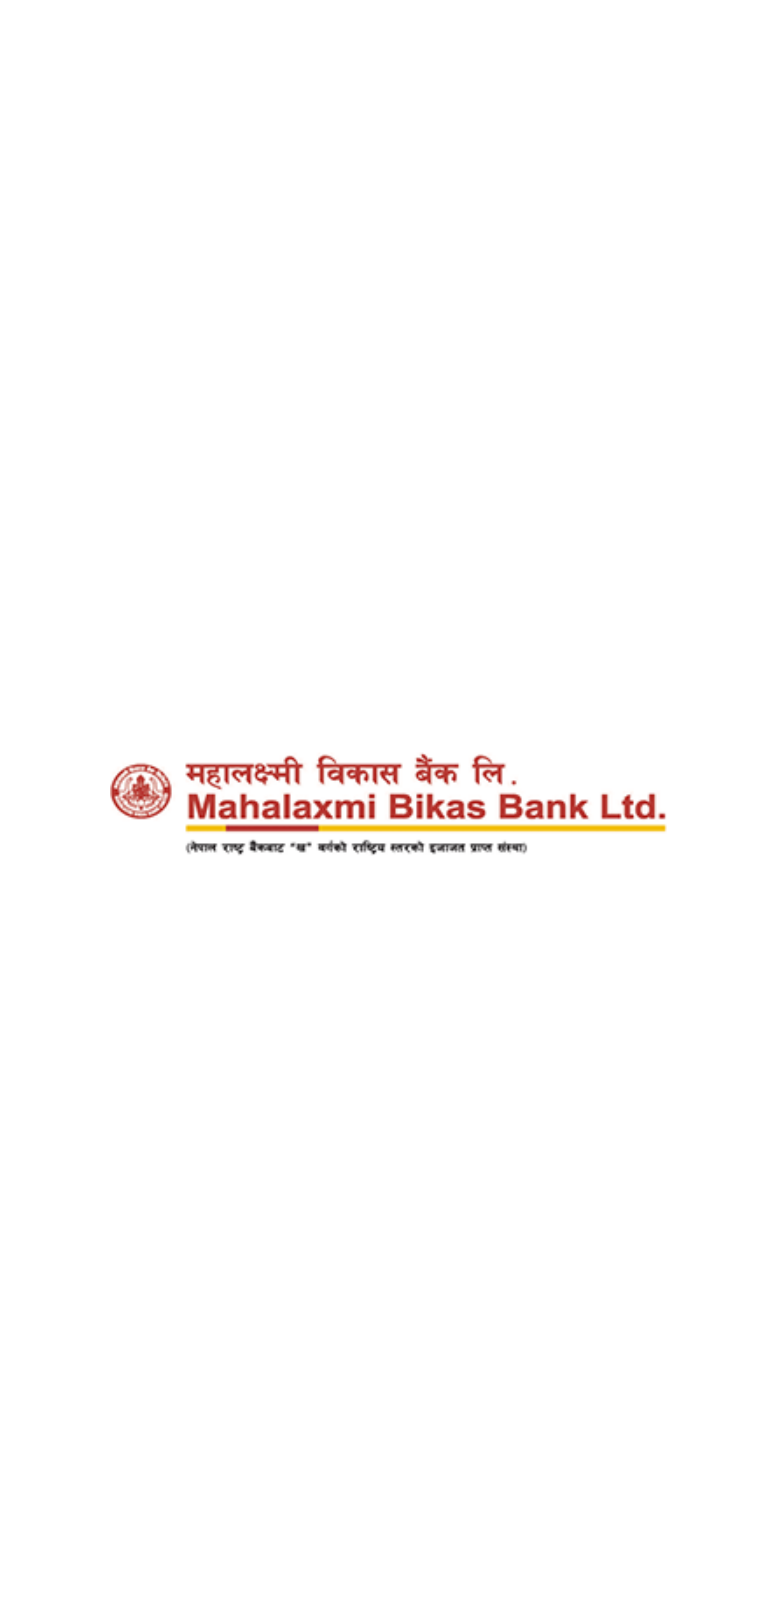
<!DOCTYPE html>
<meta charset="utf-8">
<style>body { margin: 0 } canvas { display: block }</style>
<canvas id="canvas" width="777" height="1620"></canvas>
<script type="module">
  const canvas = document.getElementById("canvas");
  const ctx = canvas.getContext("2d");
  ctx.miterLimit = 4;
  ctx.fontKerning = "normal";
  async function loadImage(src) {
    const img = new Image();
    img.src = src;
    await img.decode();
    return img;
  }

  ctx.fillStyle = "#ffffff";
  ctx.fillRect(0, 0, 777, 1620);
  ctx.drawImage(await loadImage("img1.png"), 110, 752, 557, 104);
</script>
